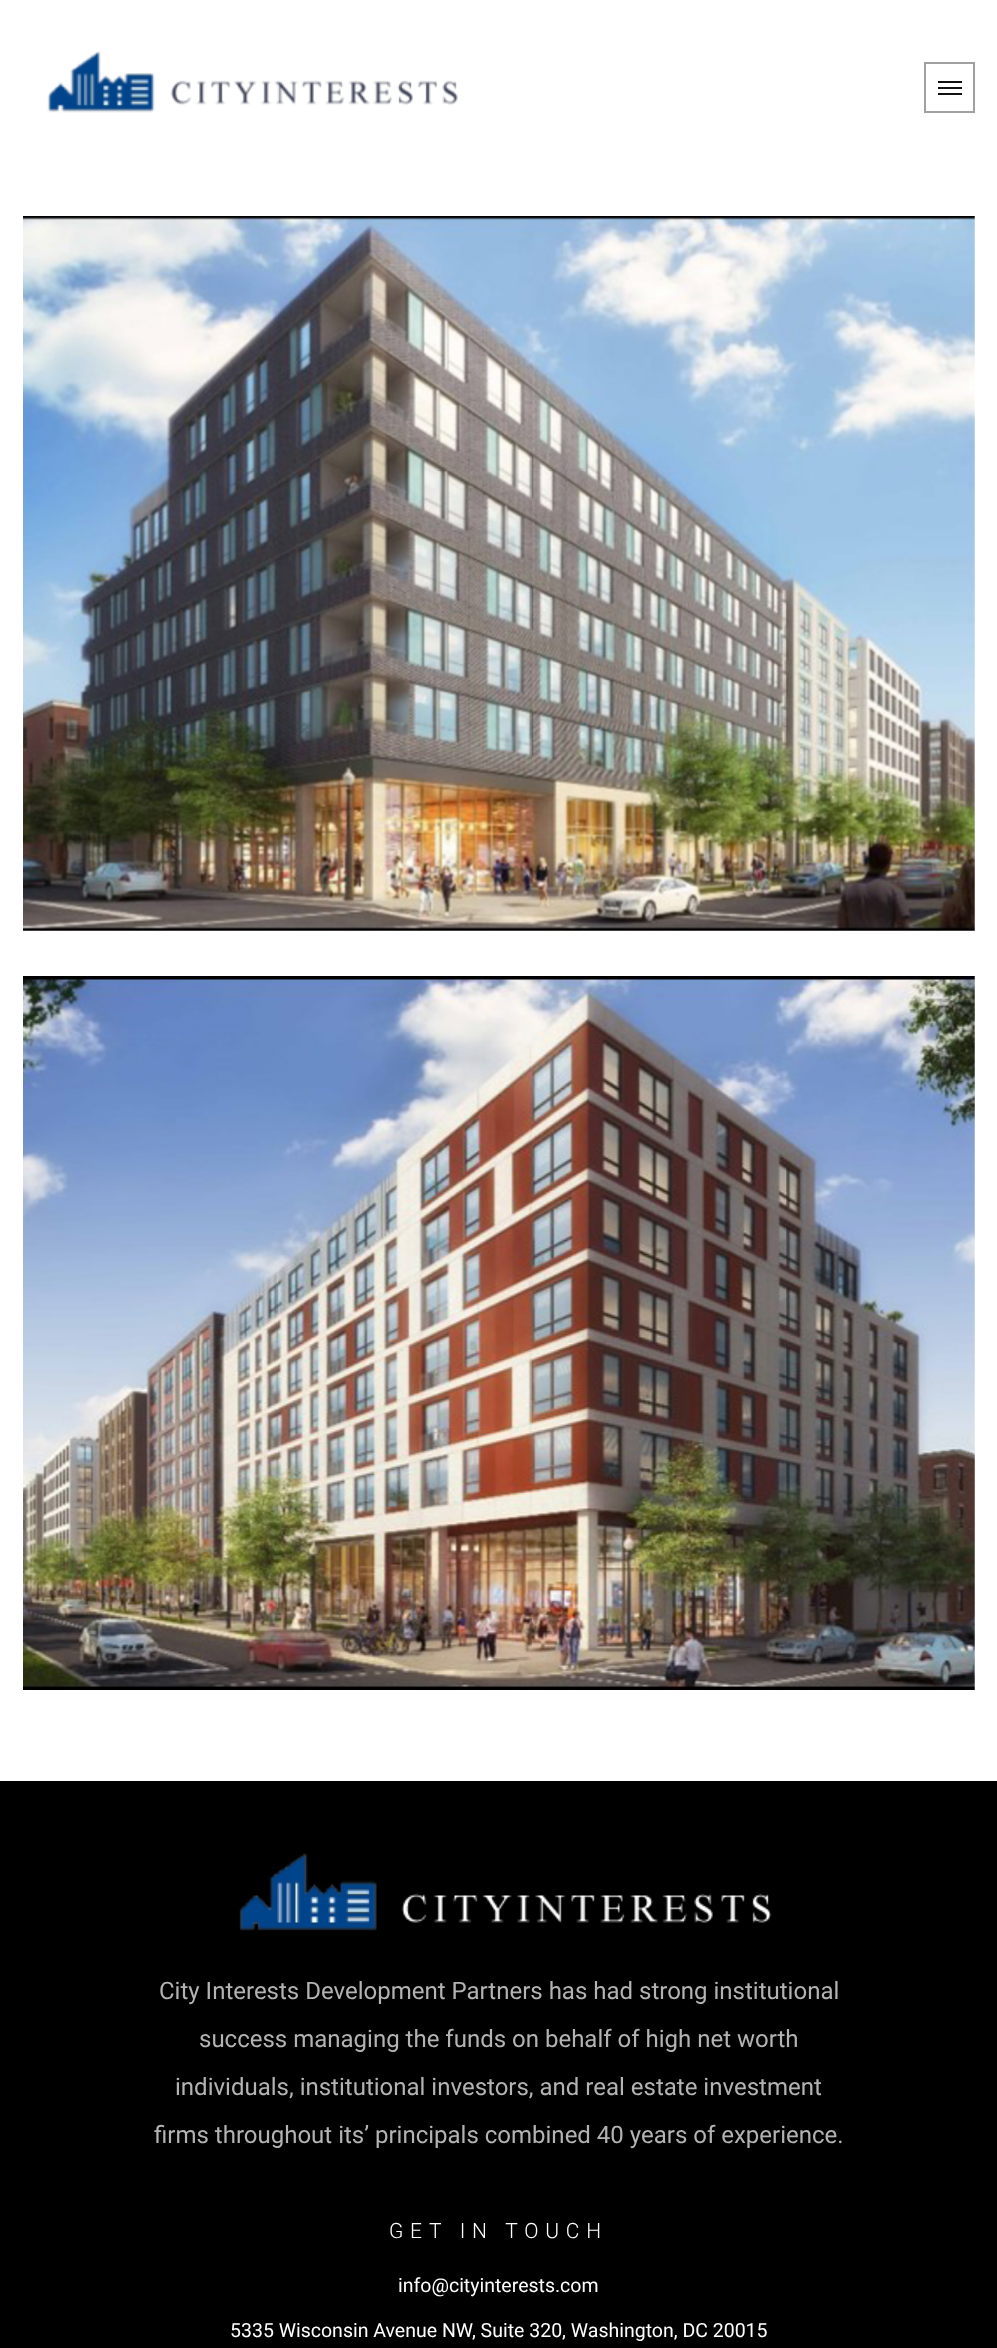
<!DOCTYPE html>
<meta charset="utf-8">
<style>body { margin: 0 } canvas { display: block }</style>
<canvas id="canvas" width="997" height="2348"></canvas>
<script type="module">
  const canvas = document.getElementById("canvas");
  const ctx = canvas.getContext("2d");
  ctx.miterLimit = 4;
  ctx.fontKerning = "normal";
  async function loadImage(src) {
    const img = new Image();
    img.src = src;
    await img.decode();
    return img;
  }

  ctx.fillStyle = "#ffffff";
  ctx.fillRect(0, 0, 997, 2348);
  ctx.drawImage(await loadImage("img1.png"), 47, 51, 411, 62);
  ctx.strokeStyle = "#a0a0a0";
  ctx.lineWidth = 2;
  ctx.strokeRect(925, 63, 49, 49);
  ctx.fillStyle = "#111111";
  ctx.fillRect(938, 87, 24, 2);
  ctx.fillRect(938, 81, 24, 2);
  ctx.fillRect(938, 93, 24, 2);
  ctx.drawImage(await loadImage("img2.png"), 23, 216, 952, 715);
  ctx.drawImage(await loadImage("img3.png"), 23, 976, 952, 714);
  ctx.fillStyle = "#000000";
  ctx.fillRect(0, 1781, 997, 567);
  ctx.drawImage(await loadImage("img4.png"), 239, 1853, 533, 78);
  ctx.font = "24px Roboto";
  ctx.fillStyle = "#b3b3b3";
  ctx.fillText("City Interests Development Partners has had strong institutional", 159, 1999);
  ctx.fillText("success managing the funds on behalf of high net worth", 199, 2047);
  ctx.fillText("individuals, institutional investors, and real estate investment", 175, 2095);
  ctx.fillText("firms throughout its’ principals combined 40 years of experience.", 154, 2143);
  ctx.letterSpacing = "6.75px";
  ctx.font = "300 21px Roboto";
  ctx.fillStyle = "#ffffff";
  ctx.fillText("GET IN TOUCH", 389, 2238);
  ctx.letterSpacing = "0px";
  ctx.font = "19.5px Roboto";
  ctx.fillText("info@cityinterests.com", 398, 2292);
  ctx.fillText("5335 Wisconsin Avenue NW, Suite 320, Washington, DC 20015", 230, 2337);
</script>
